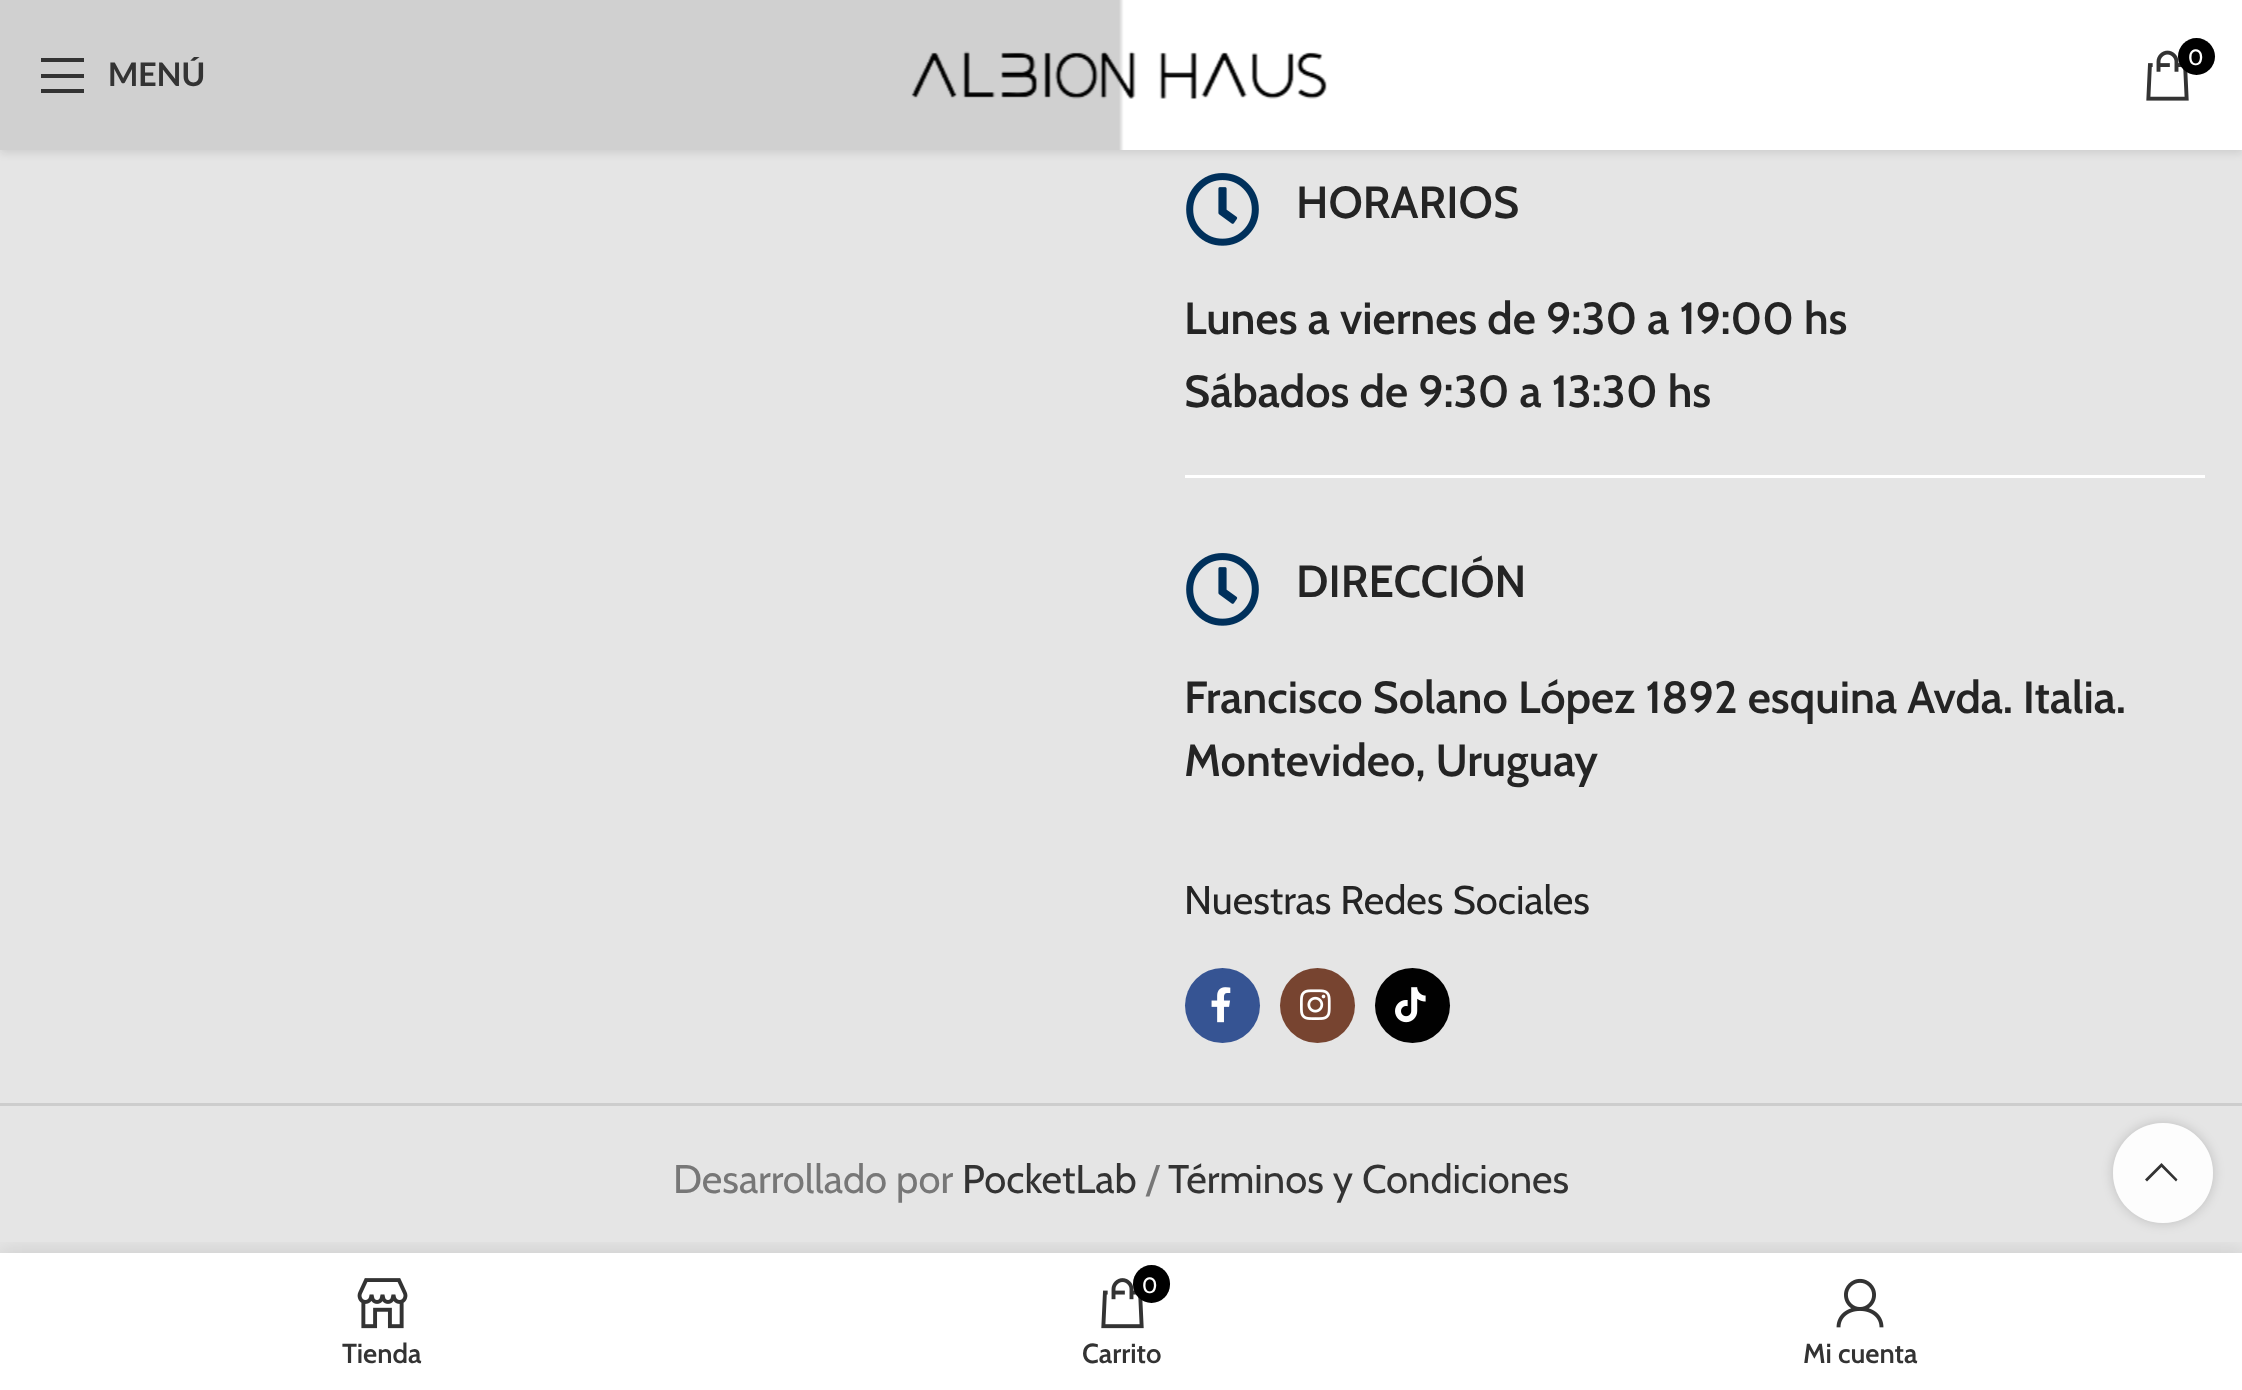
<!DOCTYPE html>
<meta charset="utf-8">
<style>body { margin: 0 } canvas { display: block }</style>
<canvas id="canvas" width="2242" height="1390"></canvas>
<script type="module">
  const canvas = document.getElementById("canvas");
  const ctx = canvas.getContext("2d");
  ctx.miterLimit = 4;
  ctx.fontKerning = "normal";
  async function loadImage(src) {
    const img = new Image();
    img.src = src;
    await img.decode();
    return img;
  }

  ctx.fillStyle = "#ffffff";
  ctx.fillRect(0, 0, 2242, 1390);
  ctx.fillStyle = "#e5e5e5";
  ctx.fillRect(0, 150, 2242, 1103);
  ctx.fillStyle = "rgba(0, 0, 0, 0.1)";
  ctx.filter = "blur(4px)";
  ctx.beginPath();
  ctx.rect(0, 3, 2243, 150);
  ctx.fill();
  ctx.filter = "none";
  ctx.drawImage(await loadImage("img1.png"), 0, 0, 2242, 150);
  ctx.fillStyle = "#333333";
  ctx.beginPath();
  ctx.moveTo(41, 62);
  ctx.lineTo(84, 62);
  ctx.lineTo(84, 58);
  ctx.lineTo(41, 58);
  ctx.closePath();
  ctx.moveTo(41, 78);
  ctx.lineTo(84, 78);
  ctx.lineTo(84, 74);
  ctx.lineTo(41, 74);
  ctx.closePath();
  ctx.moveTo(41, 93);
  ctx.lineTo(84, 93);
  ctx.lineTo(84, 89);
  ctx.lineTo(41, 89);
  ctx.closePath();
  ctx.fill();
  ctx.font = "bold 32.5px Lato";
  ctx.fillText("MENÚ", 108, 86);
  ctx.drawImage(await loadImage("img2.png"), 911, 51, 416, 49);
  ctx.drawImage(await loadImage("img3.png"), 2146, 50, 43, 51);
  ctx.fillStyle = "#000000";
  ctx.beginPath();
  ctx.arc(2196.5, 56.5, 18.5, 0, Math.PI * 2);
  ctx.fill();
  ctx.font = "22px Cabin";
  ctx.fillStyle = "#ffffff";
  ctx.fillText("0", 2188, 65);
  ctx.drawImage(await loadImage("img4.png"), 1186, 173, 73, 73);
  ctx.font = "600 45px Cabin";
  ctx.fillStyle = "#242424";
  ctx.fillText("HORARIOS", 1296, 218);
  ctx.fillText("Lunes a viernes de 9:30 a 19:00 hs", 1184, 334);
  ctx.fillText("Sábados de 9:30 a 13:30 hs", 1184, 407);
  ctx.fillStyle = "#ffffff";
  ctx.fillRect(1185, 475, 1020, 3);
  ctx.drawImage(await loadImage("img4.png"), 1186, 553, 73, 73);
  ctx.fillStyle = "#242424";
  ctx.fillText("DIRECCIÓN", 1296, 597);
  ctx.fillText("Francisco Solano López 1892 esquina Avda. Italia.", 1184, 713);
  ctx.fillText("Montevideo, Uruguay", 1184, 776);
  ctx.font = "40px Cabin";
  ctx.fillText("Nuestras Redes Sociales", 1184, 914);
  ctx.fillStyle = "#365493";
  ctx.beginPath();
  ctx.arc(1222.5, 1005.5, 37.5, 0, Math.PI * 2);
  ctx.fill();
  ctx.drawImage(await loadImage("img5.png"), 1211, 987, 20, 36);
  ctx.fillStyle = "#774430";
  ctx.beginPath();
  ctx.arc(1317.5, 1005.5, 37.5, 0, Math.PI * 2);
  ctx.fill();
  ctx.drawImage(await loadImage("img6.png"), 1300, 989, 31, 31);
  ctx.fillStyle = "#010101";
  ctx.beginPath();
  ctx.arc(1412.5, 1005.5, 37.5, 0, Math.PI * 2);
  ctx.fill();
  ctx.drawImage(await loadImage("img7.png"), 1395, 987, 31, 36);
  ctx.fillStyle = "#cdcdcd";
  ctx.fillRect(0, 1103, 2242, 3);
  ctx.fillStyle = "#777777";
  ctx.fillText("Desarrollado por", 673, 1193);
  ctx.fillStyle = "#333333";
  ctx.fillText("PocketLab", 962, 1193);
  ctx.fillStyle = "#777777";
  ctx.fillText("/", 1146, 1193);
  ctx.fillStyle = "#333333";
  ctx.fillText("Términos y Condiciones", 1168, 1193);
  ctx.save();
  ctx.beginPath();
  ctx.moveTo(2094, 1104);
  ctx.lineTo(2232, 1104);
  ctx.lineTo(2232, 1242);
  ctx.lineTo(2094, 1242);
  ctx.closePath();
  ctx.moveTo(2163, 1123);
  ctx.bezierCurveTo(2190.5, 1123, 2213, 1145.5, 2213, 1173);
  ctx.bezierCurveTo(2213, 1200.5, 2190.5, 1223, 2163, 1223);
  ctx.bezierCurveTo(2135.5, 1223, 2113, 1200.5, 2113, 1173);
  ctx.bezierCurveTo(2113, 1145.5, 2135.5, 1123, 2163, 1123);
  ctx.closePath();
  ctx.clip("evenodd");
  ctx.fillStyle = "rgba(0, 0, 0, 0.17)";
  ctx.filter = "blur(6px)";
  ctx.beginPath();
  ctx.roundRect(2113, 1123, 100, 100, 50);
  ctx.fill();
  ctx.filter = "none";
  ctx.restore();
  ctx.fillStyle = "rgba(255, 255, 255, 0.9)";
  ctx.beginPath();
  ctx.arc(2163, 1173, 50, 0, Math.PI * 2);
  ctx.fill();
  ctx.fillStyle = "#333333";
  ctx.beginPath();
  ctx.moveTo(2176, 1181.5);
  ctx.lineTo(2177.5, 1179.5);
  ctx.lineTo(2161.5, 1163);
  ctx.lineTo(2145, 1179.5);
  ctx.lineTo(2147, 1181.5);
  ctx.lineTo(2161.5, 1167);
  ctx.closePath();
  ctx.fill();
  ctx.save();
  ctx.beginPath();
  ctx.rect(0, 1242, 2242, 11);
  ctx.clip();
  ctx.fillStyle = "rgba(0, 0, 0, 0.12)";
  ctx.filter = "blur(11px)";
  ctx.beginPath();
  ctx.rect(0, 1253, 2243, 137);
  ctx.fill();
  ctx.filter = "none";
  ctx.restore();
  ctx.drawImage(await loadImage("img8.png"), 357, 1278, 51, 51);
  ctx.font = "600 27.5px Cabin";
  ctx.fillText("Tienda", 342, 1363);
  ctx.drawImage(await loadImage("img9.png"), 1101, 1278, 43, 51);
  ctx.fillStyle = "#000000";
  ctx.beginPath();
  ctx.roundRect(1133, 1265, 37, 38, 18.5);
  ctx.fill();
  ctx.font = "22px Cabin";
  ctx.fillStyle = "#ffffff";
  ctx.fillText("0", 1142, 1293);
  ctx.font = "600 27.5px Cabin";
  ctx.fillStyle = "#333333";
  ctx.fillText("Carrito", 1082, 1363);
  ctx.drawImage(await loadImage("img10.png"), 1836, 1278, 48, 50);
  ctx.fillText("Mi cuenta", 1803, 1363);
</script>
